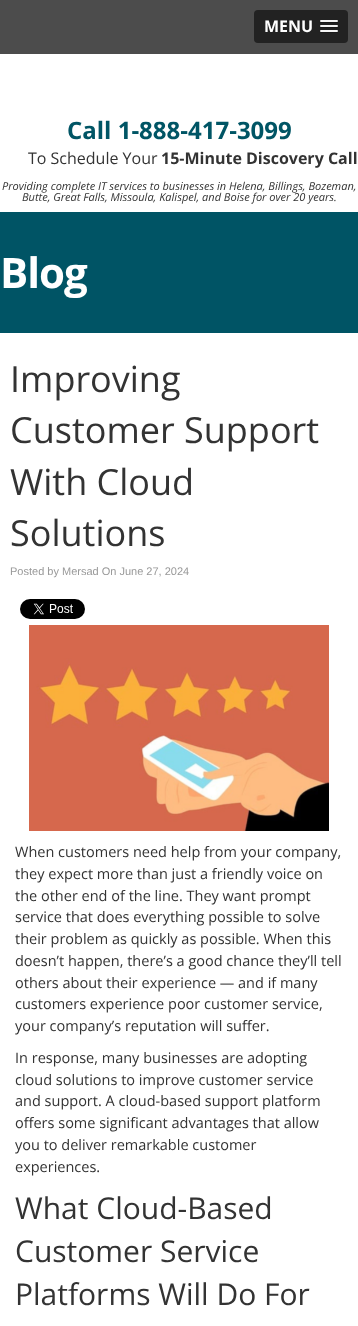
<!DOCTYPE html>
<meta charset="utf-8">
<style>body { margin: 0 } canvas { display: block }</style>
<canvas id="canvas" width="358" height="1326"></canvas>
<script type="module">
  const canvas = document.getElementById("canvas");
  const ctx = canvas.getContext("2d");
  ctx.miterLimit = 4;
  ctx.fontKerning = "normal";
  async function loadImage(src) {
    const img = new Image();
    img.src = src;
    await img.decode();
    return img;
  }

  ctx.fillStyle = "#ffffff";
  ctx.fillRect(0, 0, 358, 1326);
  ctx.fillStyle = "#4c4c4c";
  ctx.fillRect(0, 0, 358, 54);
  ctx.fillStyle = "#222222";
  ctx.beginPath();
  ctx.roundRect(254, 10, 94, 33, 4);
  ctx.fill();
  ctx.font = "bold 16px Open Sans";
  ctx.fillStyle = "#ffffff";
  ctx.fillText("MENU", 264, 32);
  ctx.fillStyle = "#1a1a1a";
  ctx.beginPath();
  ctx.moveTo(320, 21.5);
  ctx.bezierCurveTo(319, 23.5, 323.5, 23, 323.5, 23);
  ctx.lineTo(334.5, 23);
  ctx.bezierCurveTo(334.5, 23, 339, 23.5, 338, 21.5);
  ctx.bezierCurveTo(337, 22.5, 330.5, 22, 329, 22);
  ctx.bezierCurveTo(327.5, 22, 321, 22.5, 320, 21.5);
  ctx.closePath();
  ctx.fill();
  ctx.fillStyle = "#f5f5f5";
  ctx.beginPath();
  ctx.roundRect(320, 20, 18, 2, 1);
  ctx.fill();
  ctx.fillStyle = "#1a1a1a";
  ctx.beginPath();
  ctx.moveTo(320, 26.5);
  ctx.bezierCurveTo(319, 28.5, 323.5, 28, 323.5, 28);
  ctx.lineTo(334.5, 28);
  ctx.bezierCurveTo(334.5, 28, 339, 28.5, 338, 26.5);
  ctx.bezierCurveTo(337, 27.5, 330.5, 27, 329, 27);
  ctx.bezierCurveTo(327.5, 27, 321, 27.5, 320, 26.5);
  ctx.closePath();
  ctx.fill();
  ctx.fillStyle = "#f5f5f5";
  ctx.beginPath();
  ctx.roundRect(320, 25, 18, 2, 1);
  ctx.fill();
  ctx.fillStyle = "#1a1a1a";
  ctx.beginPath();
  ctx.moveTo(320, 31.5);
  ctx.bezierCurveTo(319, 33.5, 323.5, 33, 323.5, 33);
  ctx.lineTo(334.5, 33);
  ctx.bezierCurveTo(334.5, 33, 339, 33.5, 338, 31.5);
  ctx.bezierCurveTo(337, 32.5, 330.5, 32, 329, 32);
  ctx.bezierCurveTo(327.5, 32, 321, 32.5, 320, 31.5);
  ctx.closePath();
  ctx.fill();
  ctx.fillStyle = "#f5f5f5";
  ctx.beginPath();
  ctx.roundRect(320, 30, 18, 2, 1);
  ctx.fill();
  ctx.font = "bold 24px Open Sans";
  ctx.fillStyle = "#005565";
  ctx.fillText("Call 1-888-417-3099", 67, 139);
  ctx.font = "16px Open Sans";
  ctx.fillStyle = "#333333";
  ctx.fillText("To Schedule Your", 28, 164);
  ctx.font = "bold 16px Open Sans";
  ctx.fillText("15-Minute Discovery Call", 161, 164);
  ctx.font = "italic 11px Open Sans";
  ctx.fillText("Providing complete IT services to businesses in Helena, Billings, Bozeman,", 2, 190);
  ctx.fillText("Butte, Great Falls, Missoula, Kalispel, and Boise for over 20 years.", 22, 201);
  ctx.fillStyle = "#005465";
  ctx.fillRect(0, 212, 358, 121);
  ctx.letterSpacing = "-1px";
  ctx.font = "bold 42px Open Sans";
  ctx.fillStyle = "#ffffff";
  ctx.fillText("Blog", 0, 288);
  ctx.letterSpacing = "0px";
  ctx.font = "36px Open Sans";
  ctx.fillStyle = "#333333";
  ctx.fillText("Improving", 10, 392);
  ctx.fillText("Customer Support", 10, 443);
  ctx.fillText("With Cloud", 10, 495);
  ctx.fillText("Solutions", 10, 546);
  ctx.font = "11px Liberation Sans";
  ctx.fillStyle = "#999999";
  ctx.fillText("Posted by Mersad On June 27, 2024", 10, 575);
  ctx.drawImage(await loadImage("img1.png"), 20, 599, 65, 20);
  ctx.drawImage(await loadImage("img2.png"), 29, 625, 300, 206);
  ctx.font = "14.5px Open Sans";
  ctx.fillStyle = "#333333";
  ctx.fillText("When customers need help from your company,", 15, 857);
  ctx.fillText("they expect more than just a friendly voice on", 15, 879);
  ctx.fillText("the other end of the line. They want prompt", 15, 901);
  ctx.fillText("service that does everything possible to solve", 15, 922);
  ctx.fillText("their problem as quickly as possible. When this", 15, 944);
  ctx.fillText("doesn’t happen, there’s a good chance they’ll tell", 15, 966);
  ctx.fillText("others about their experience — and if many", 15, 988);
  ctx.fillText("customers experience poor customer service,", 15, 1009);
  ctx.fillText("your company’s reputation will suffer.", 15, 1031);
  ctx.fillText("In response, many businesses are adopting", 15, 1063);
  ctx.fillText("cloud solutions to improve customer service", 15, 1085);
  ctx.fillText("and support. A cloud-based support platform", 15, 1106);
  ctx.fillText("offers some significant advantages that allow", 15, 1128);
  ctx.fillText("you to deliver remarkable customer", 15, 1150);
  ctx.fillText("experiences.", 15, 1172);
  ctx.font = "30px Open Sans";
  ctx.fillText("What Cloud-Based", 15, 1219);
  ctx.fillText("Customer Service", 15, 1262);
  ctx.fillText("Platforms Will Do For", 15, 1305);
</script>
